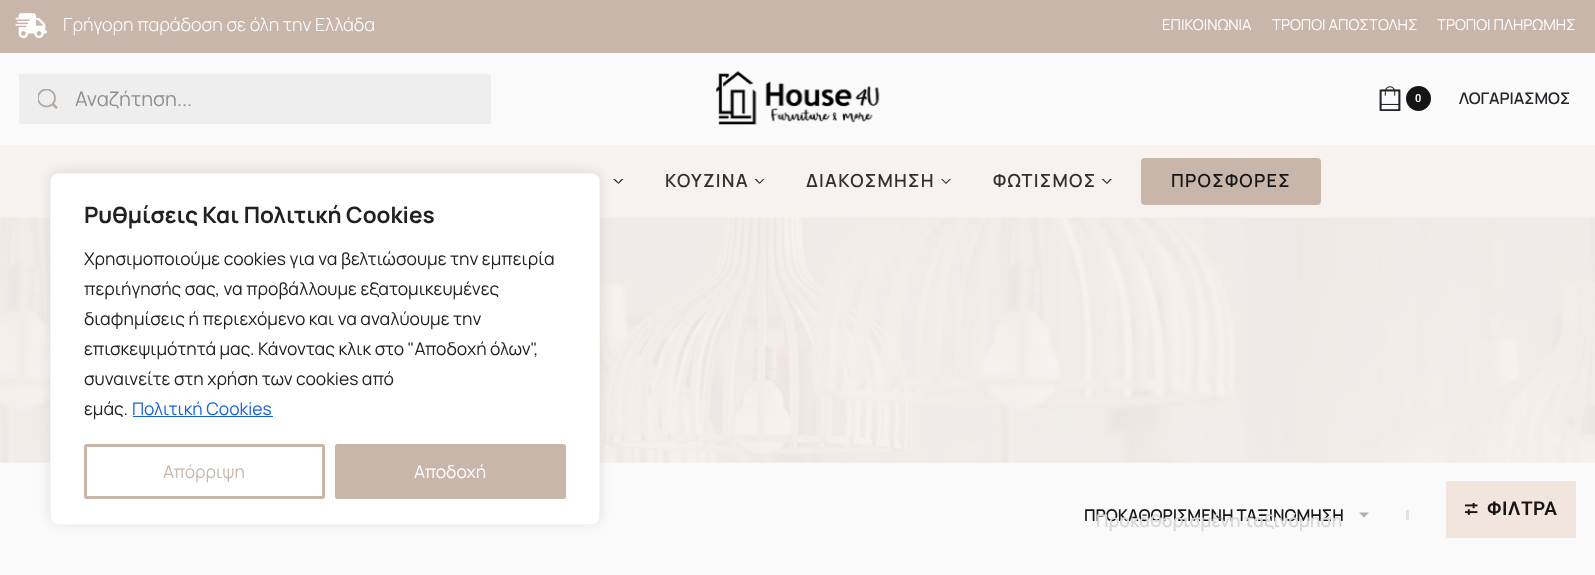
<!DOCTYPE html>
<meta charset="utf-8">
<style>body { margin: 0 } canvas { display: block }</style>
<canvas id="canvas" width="1595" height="575"></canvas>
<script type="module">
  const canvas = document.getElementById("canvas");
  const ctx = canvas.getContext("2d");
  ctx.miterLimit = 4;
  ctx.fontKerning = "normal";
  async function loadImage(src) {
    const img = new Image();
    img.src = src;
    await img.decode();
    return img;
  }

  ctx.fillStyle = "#fafafa";
  ctx.fillRect(0, 0, 1595, 575);
  ctx.fillStyle = "#c9b6ab";
  ctx.fillRect(0, 0, 1595, 53);
  ctx.drawImage(await loadImage("img1.png"), 15, 13, 32, 26);
  ctx.font = "200 18px Manrope";
  ctx.fillStyle = "#ffffff";
  ctx.fillText("Γρήγορη παράδοση σε όλη την Ελλάδα", 63, 31);
  ctx.font = "200 15px 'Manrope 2'";
  ctx.fillText("ΕΠΙΚΟΙΝΩΝΙΑ", 1162, 30);
  ctx.fillText("ΤΡΟΠΟΙ ΑΠΟΣΤΟΛΗΣ", 1272, 30);
  ctx.fillText("ΤΡΟΠΟΙ ΠΛΗΡΩΜΗΣ", 1437, 30);
  ctx.fillStyle = "#eeeeee";
  ctx.fillRect(19, 74, 472, 50);
  ctx.drawImage(await loadImage("img2.png"), 38, 89, 20, 20);
  ctx.font = "200 20px 'Manrope 2'";
  ctx.fillStyle = "#8f8f8f";
  ctx.fillText("Αναζήτηση...", 75, 106);
  ctx.drawImage(await loadImage("img3.png"), 716, 71, 164, 54);
  ctx.drawImage(await loadImage("img4.png"), 1379, 86, 22, 25);
  ctx.fillStyle = "#171616";
  ctx.beginPath();
  ctx.arc(1418.5, 98.5, 12.5, 0, Math.PI * 2);
  ctx.fill();
  ctx.font = "600 11px Roboto";
  ctx.fillStyle = "#ffffff";
  ctx.fillText("0", 1415, 102);
  ctx.font = "200 16px 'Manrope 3'";
  ctx.fillStyle = "#22262a";
  ctx.fillText("ΛΟΓΑΡΙΑΣΜΟΣ", 1459, 104);
  ctx.fillStyle = "#f7f2ef";
  ctx.fillRect(0, 145, 1595, 318);
  ctx.fillStyle = "#303030";
  ctx.beginPath();
  ctx.moveTo(623.5, 179);
  ctx.lineTo(618.5, 184);
  ctx.lineTo(618.5, 182.5);
  ctx.lineTo(621.5, 179);
  ctx.closePath();
  ctx.fill();
  ctx.beginPath();
  ctx.moveTo(618.5, 184);
  ctx.lineTo(613, 179);
  ctx.lineTo(615, 179);
  ctx.lineTo(618.5, 182.5);
  ctx.closePath();
  ctx.fill();
  ctx.letterSpacing = "1.25px";
  ctx.font = "200 18px 'Manrope 3'";
  ctx.fillText("ΚΟΥΖΙΝΑ", 665, 187);
  ctx.beginPath();
  ctx.moveTo(764.5, 179);
  ctx.lineTo(759.5, 184);
  ctx.lineTo(759.5, 182.5);
  ctx.lineTo(763, 179);
  ctx.closePath();
  ctx.fill();
  ctx.beginPath();
  ctx.moveTo(759.5, 184);
  ctx.lineTo(754.5, 179);
  ctx.lineTo(756.5, 179);
  ctx.lineTo(759.5, 182.5);
  ctx.closePath();
  ctx.fill();
  ctx.fillText("ΔΙΑΚΟΣΜΗΣΗ", 806, 187);
  ctx.beginPath();
  ctx.moveTo(951, 179);
  ctx.lineTo(946, 184);
  ctx.lineTo(946, 182.5);
  ctx.lineTo(949.5, 179);
  ctx.closePath();
  ctx.moveTo(946, 184);
  ctx.lineTo(941, 179);
  ctx.lineTo(942.5, 179);
  ctx.lineTo(946, 182.5);
  ctx.closePath();
  ctx.fill();
  ctx.fillText("ΦΩΤΙΣΜΟΣ", 993, 187);
  ctx.beginPath();
  ctx.moveTo(1112, 179);
  ctx.lineTo(1107, 184);
  ctx.lineTo(1107, 182.5);
  ctx.lineTo(1110, 179);
  ctx.closePath();
  ctx.moveTo(1107, 184);
  ctx.lineTo(1101.5, 179);
  ctx.lineTo(1103.5, 179);
  ctx.lineTo(1107, 182.5);
  ctx.closePath();
  ctx.fill();
  ctx.fillStyle = "#c9b6ab";
  ctx.beginPath();
  ctx.roundRect(1141, 158, 180, 47, 4);
  ctx.fill();
  ctx.fillStyle = "#171616";
  ctx.fillText("ΠΡΟΣΦΟΡΕΣ", 1171, 187);
  ctx.drawImage(await loadImage("img5.png"), 0, 217, 1595, 246);
  ctx.letterSpacing = "0px";
  ctx.font = "200 16.25px 'Manrope 3'";
  ctx.fillText("ΠΡΟΚΑΘΟΡΙΣΜΕΝΗ ΤΑΞΙΝΟΜΗΣΗ", 1084, 521);
  ctx.fillStyle = "#afafaf";
  ctx.beginPath();
  ctx.moveTo(1359, 512.5);
  ctx.lineTo(1369, 512.5);
  ctx.lineTo(1364, 517.5);
  ctx.closePath();
  ctx.fill();
  ctx.font = "200 17.5px 'Manrope 3'";
  ctx.fillStyle = "#d7d7d7";
  ctx.fillText("Προκαθορισμένη ταξινόμηση", 1096, 527);
  ctx.fillStyle = "#dfe3e7";
  ctx.fillRect(1406, 510, 3, 10);
  ctx.fillStyle = "#f2e5dd";
  ctx.fillRect(1446, 481, 130, 57);
  ctx.drawImage(await loadImage("img6.png"), 1465, 503, 13, 12);
  ctx.letterSpacing = "0.5px";
  ctx.font = "600 19px Roboto";
  ctx.fillStyle = "#171616";
  ctx.fillText("ΦΙΛΤΡΑ", 1487, 515);
  ctx.fillStyle = "rgba(172, 171, 171, 0.3)";
  ctx.filter = "blur(6px)";
  ctx.beginPath();
  ctx.roundRect(50, 171, 550, 353, 8);
  ctx.fill();
  ctx.filter = "none";
  ctx.fillStyle = "#ffffff";
  ctx.beginPath();
  ctx.roundRect(50.5, 173.5, 549, 351, 7.5);
  ctx.fill();
  ctx.strokeStyle = "#f4f4f4";
  ctx.stroke();
  ctx.letterSpacing = "0px";
  ctx.font = "200 22.5px 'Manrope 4'";
  ctx.fillStyle = "#212121";
  ctx.fillText("Ρυθμίσεις Και Πολιτική Cookies", 84, 223);
  ctx.font = "200 17.5px 'Manrope 2'";
  ctx.fillText("Χρησιμοποιούμε cookies για να βελτιώσουμε την εμπειρία", 84, 265);
  ctx.fillText("περιήγησής σας, να προβάλλουμε εξατομικευμένες", 84, 295);
  ctx.fillText("διαφημίσεις ή περιεχόμενο και να αναλύουμε την", 84, 325);
  ctx.fillText("επισκεψιμότητά μας. Κάνοντας κλικ στο \"Αποδοχή όλων\",", 84, 355);
  ctx.fillText("συναινείτε στη χρήση των cookies από", 84, 385);
  ctx.fillText("εμάς.", 84, 415);
  ctx.fillStyle = "#1863dc";
  ctx.fillText("Πολιτική Cookies", 132, 415);
  ctx.fillRect(133, 416, 140, 1);
  ctx.beginPath();
  ctx.roundRect(85.5, 445.5, 238, 52, 1);
  ctx.strokeStyle = "#c9b6ab";
  ctx.lineWidth = 3;
  ctx.stroke();
  ctx.fillStyle = "#c9b6ab";
  ctx.fillText("Απόρριψη", 163, 478);
  ctx.beginPath();
  ctx.roundRect(336.5, 445.5, 228, 52, 1);
  ctx.fill();
  ctx.stroke();
  ctx.fillStyle = "#ffffff";
  ctx.fillText("Αποδοχή", 414, 478);
</script>
